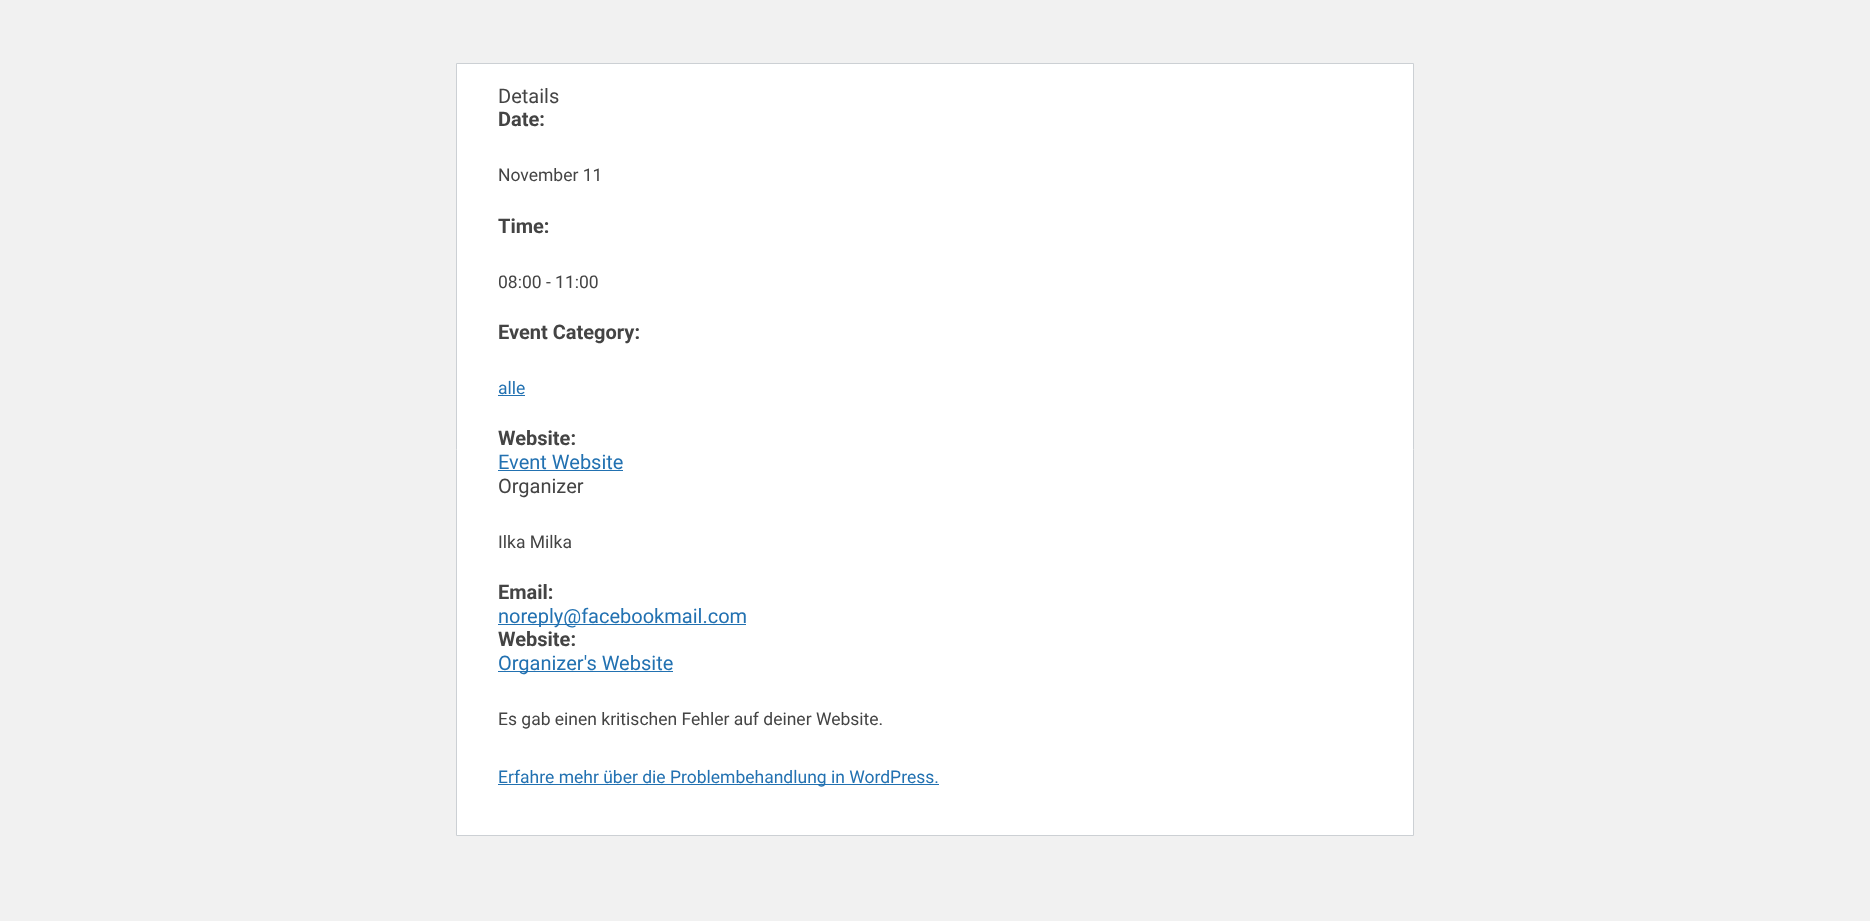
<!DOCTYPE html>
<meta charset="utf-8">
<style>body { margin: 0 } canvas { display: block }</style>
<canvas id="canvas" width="1870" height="921"></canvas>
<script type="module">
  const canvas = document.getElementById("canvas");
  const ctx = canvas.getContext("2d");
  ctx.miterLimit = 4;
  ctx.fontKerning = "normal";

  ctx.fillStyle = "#f1f1f1";
  ctx.fillRect(0, 0, 1870, 921);
  ctx.fillStyle = "#ffffff";
  ctx.beginPath();
  ctx.rect(456.5, 63.5, 957, 772);
  ctx.fill();
  ctx.strokeStyle = "#ccd0d4";
  ctx.stroke();
  ctx.font = "20px Roboto";
  ctx.fillStyle = "#444444";
  ctx.fillText("Details", 498, 103);
  ctx.font = "bold 20px Roboto";
  ctx.fillText("Date:", 498, 126);
  ctx.font = "17.5px Roboto";
  ctx.fillText("November 11", 498, 181);
  ctx.font = "bold 20px Roboto";
  ctx.fillText("Time:", 498, 233);
  ctx.font = "17.5px Roboto";
  ctx.fillText("08:00 - 11:00", 498, 288);
  ctx.font = "bold 20px Roboto";
  ctx.fillText("Event Category:", 498, 339);
  ctx.font = "17.5px Roboto";
  ctx.fillStyle = "#2271b1";
  ctx.fillText("alle", 498, 394);
  ctx.fillRect(498, 395, 27, 1);
  ctx.font = "bold 20px Roboto";
  ctx.fillStyle = "#444444";
  ctx.fillText("Website:", 498, 445);
  ctx.font = "20px Roboto";
  ctx.fillStyle = "#2271b1";
  ctx.fillText("Event Website", 498, 469);
  ctx.fillRect(498, 470, 125, 1);
  ctx.fillStyle = "#444444";
  ctx.fillText("Organizer", 498, 493);
  ctx.font = "17.5px Roboto";
  ctx.fillText("Ilka Milka", 498, 548);
  ctx.font = "bold 20px Roboto";
  ctx.fillText("Email:", 498, 599);
  ctx.fillStyle = "#2271b1";
  ctx.fillRect(498, 624, 248, 1);
  ctx.font = "20px Roboto";
  ctx.fillText("noreply@facebookmail.com", 498, 623);
  ctx.font = "bold 20px Roboto";
  ctx.fillStyle = "#444444";
  ctx.fillText("Website:", 498, 646);
  ctx.fillStyle = "#2271b1";
  ctx.fillRect(498, 671, 175, 1);
  ctx.font = "20px Roboto";
  ctx.fillText("Organizer's Website", 498, 670);
  ctx.font = "17.5px Roboto";
  ctx.fillStyle = "#444444";
  ctx.fillText("Es gab einen kritischen Fehler auf deiner Website.", 498, 725);
  ctx.fillStyle = "#2271b1";
  ctx.fillRect(498, 784, 441, 1);
  ctx.fillText("Erfahre mehr über die Problembehandlung in WordPress.", 498, 783);
</script>
